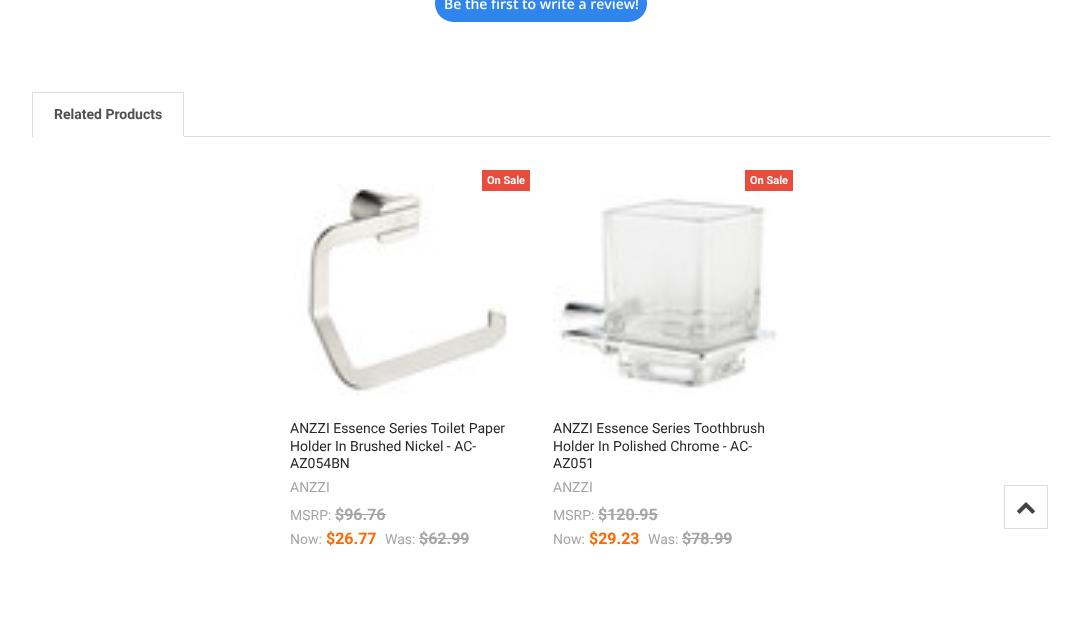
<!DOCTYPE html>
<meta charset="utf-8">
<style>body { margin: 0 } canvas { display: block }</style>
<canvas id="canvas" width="1083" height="629"></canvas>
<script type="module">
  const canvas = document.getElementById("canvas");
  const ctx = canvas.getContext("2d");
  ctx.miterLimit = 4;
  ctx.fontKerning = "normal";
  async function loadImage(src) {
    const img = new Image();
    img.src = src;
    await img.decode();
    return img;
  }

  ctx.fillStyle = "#ffffff";
  ctx.fillRect(0, 0, 1083, 629);
  ctx.fillStyle = "#2f84ed";
  ctx.beginPath();
  ctx.roundRect(435, -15, 212, 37, 18.5);
  ctx.fill();
  ctx.font = "600 14px Open Sans";
  ctx.fillStyle = "#ffffff";
  ctx.fillText("Be the first to write a review!", 444, 9);
  ctx.fillStyle = "#dcdcdc";
  ctx.fillRect(184, 136, 867, 1);
  ctx.fillRect(32, 92, 152, 1);
  ctx.fillRect(183, 92, 1, 45);
  ctx.fillStyle = "#ffffff";
  ctx.fillRect(183, 136, 1, 1);
  ctx.fillStyle = "#dcdcdc";
  ctx.fillRect(32, 92, 1, 45);
  ctx.font = "bold 14px Roboto";
  ctx.fillStyle = "#505050";
  ctx.fillText("Related Products", 54, 119);
  ctx.drawImage(await loadImage("img1.png"), 294, 184, 213, 212);
  ctx.fillStyle = "#e74c3c";
  ctx.fillRect(482, 170, 48, 21);
  ctx.font = "bold 11px Roboto";
  ctx.fillStyle = "#ffffff";
  ctx.fillText("On Sale", 487, 184);
  ctx.font = "14px Roboto";
  ctx.fillStyle = "#282828";
  ctx.fillText("ANZZI Essence Series Toilet Paper", 290, 433);
  ctx.fillText("Holder In Brushed Nickel - AC-", 290, 451);
  ctx.fillText("AZ054BN", 290, 468);
  ctx.fillStyle = "#a5a5a5";
  ctx.fillText("ANZZI", 290, 492);
  ctx.fillText("MSRP:", 290, 520);
  ctx.font = "bold 16px Roboto";
  ctx.fillText("$96.76", 335, 520);
  ctx.fillRect(335, 514, 51, 1);
  ctx.font = "14px Roboto";
  ctx.fillText("Now:", 290, 544);
  ctx.font = "bold 16px Roboto";
  ctx.fillStyle = "#ff6600";
  ctx.fillText("$26.77", 326, 544);
  ctx.font = "14px Roboto";
  ctx.fillStyle = "#a5a5a5";
  ctx.fillText("Was:", 385, 544);
  ctx.font = "bold 16px Roboto";
  ctx.fillText("$62.99", 419, 544);
  ctx.fillRect(419, 538, 50, 1);
  ctx.fillStyle = "#e74c3c";
  ctx.fillRect(745, 170, 48, 21);
  ctx.font = "bold 11px Roboto";
  ctx.fillStyle = "#ffffff";
  ctx.fillText("On Sale", 750, 184);
  ctx.drawImage(await loadImage("img2.png"), 553, 194, 225, 199);
  ctx.font = "14px Roboto";
  ctx.fillStyle = "#282828";
  ctx.fillText("ANZZI Essence Series Toothbrush", 553, 433);
  ctx.fillText("Holder In Polished Chrome - AC-", 553, 451);
  ctx.fillText("AZ051", 553, 468);
  ctx.fillStyle = "#a5a5a5";
  ctx.fillText("ANZZI", 553, 492);
  ctx.fillText("MSRP:", 553, 520);
  ctx.font = "bold 16px Roboto";
  ctx.fillText("$120.95", 598, 520);
  ctx.fillRect(598, 514, 60, 1);
  ctx.font = "14px Roboto";
  ctx.fillText("Now:", 553, 544);
  ctx.font = "bold 16px Roboto";
  ctx.fillStyle = "#ff6600";
  ctx.fillText("$29.23", 589, 544);
  ctx.font = "14px Roboto";
  ctx.fillStyle = "#a5a5a5";
  ctx.fillText("Was:", 648, 544);
  ctx.font = "bold 16px Roboto";
  ctx.fillText("$78.99", 682, 544);
  ctx.fillRect(682, 538, 50, 1);
  ctx.strokeStyle = "#dcdcdc";
  ctx.strokeRect(1004.5, 485.5, 43, 43);
  ctx.drawImage(await loadImage("img3.png"), 1017, 502, 18, 12);
</script>
